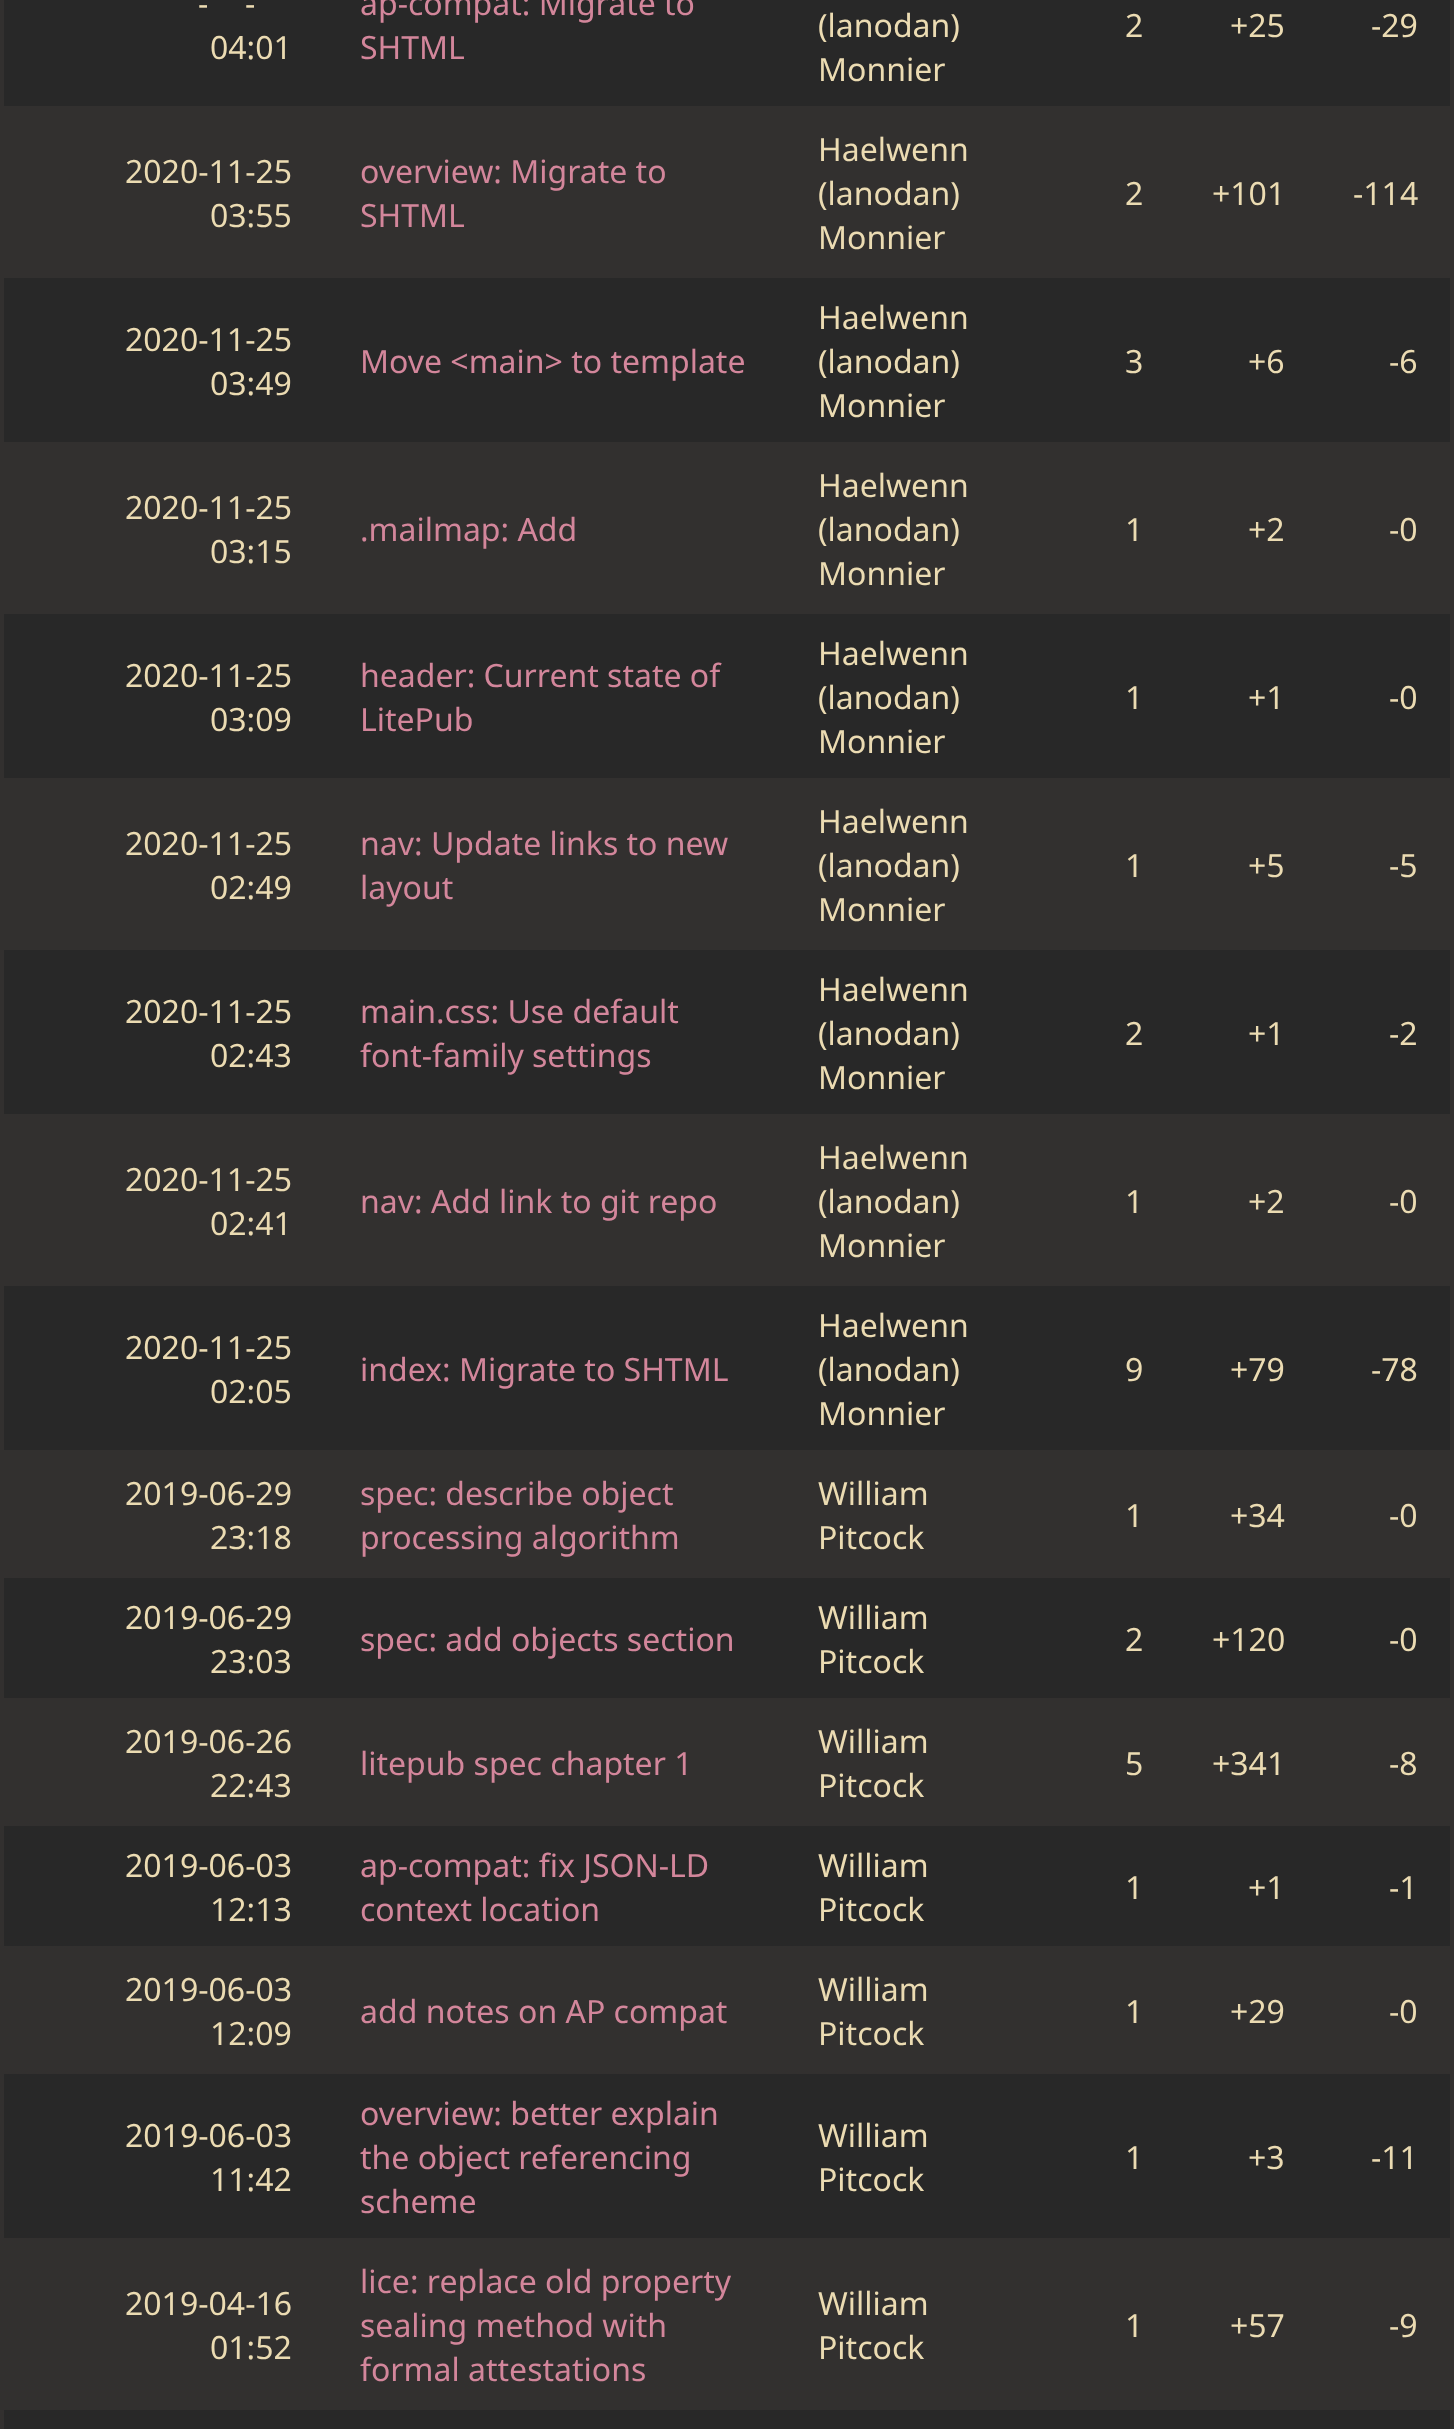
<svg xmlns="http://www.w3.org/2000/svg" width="1454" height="2429">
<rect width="100%" height="100%" fill="#32302f"/>
<rect x="4" width="1446" height="106" fill="#282828"/>
<text x="198" y="15" style="font-family:Noto Sans;font-size:32px;fill:#ebdbb2">-</text>
<text x="245" y="15" style="font-family:Noto Sans;font-size:32px;fill:#ebdbb2">-</text>
<text x="210" y="59" style="font-family:Noto Sans;font-size:32px;fill:#ebdbb2">04:01</text>
<text x="360" y="15" style="font-family:Noto Sans;font-size:32px;fill:#d3869b">ap-compat: Migrate to</text>
<text x="360" y="59" style="font-family:Noto Sans;font-size:32px;fill:#d3869b">SHTML</text>
<text x="818" y="37" style="font-family:Noto Sans;font-size:32px;fill:#ebdbb2">(lanodan)</text>
<text x="818" y="81" style="font-family:Noto Sans;font-size:32px;fill:#ebdbb2">Monnier</text>
<text x="1125" y="37" style="font-family:Noto Sans;font-size:32px;fill:#ebdbb2">2</text>
<text x="1230" y="37" style="font-family:Noto Sans;font-size:32px;fill:#ebdbb2">+25</text>
<text x="1371" y="37" style="font-family:Noto Sans;font-size:32px;fill:#ebdbb2">-29</text>
<text x="125" y="183" style="font-family:Noto Sans;font-size:32px;fill:#ebdbb2">2020-11-25</text>
<text x="210" y="227" style="font-family:Noto Sans;font-size:32px;fill:#ebdbb2">03:55</text>
<text x="360" y="183" style="font-family:Noto Sans;font-size:32px;fill:#d3869b">overview: Migrate to</text>
<text x="360" y="227" style="font-family:Noto Sans;font-size:32px;fill:#d3869b">SHTML</text>
<text x="818" y="161" style="font-family:Noto Sans;font-size:32px;fill:#ebdbb2">Haelwenn</text>
<text x="818" y="205" style="font-family:Noto Sans;font-size:32px;fill:#ebdbb2">(lanodan)</text>
<text x="818" y="249" style="font-family:Noto Sans;font-size:32px;fill:#ebdbb2">Monnier</text>
<text x="1125" y="205" style="font-family:Noto Sans;font-size:32px;fill:#ebdbb2">2</text>
<text x="1212" y="205" style="font-family:Noto Sans;font-size:32px;fill:#ebdbb2">+101</text>
<text x="1353" y="205" style="font-family:Noto Sans;font-size:32px;fill:#ebdbb2">-114</text>
<rect x="4" y="278" width="1446" height="164" fill="#282828"/>
<text x="125" y="351" style="font-family:Noto Sans;font-size:32px;fill:#ebdbb2">2020-11-25</text>
<text x="210" y="395" style="font-family:Noto Sans;font-size:32px;fill:#ebdbb2">03:49</text>
<text x="360" y="373" style="font-family:Noto Sans;font-size:32px;fill:#d3869b">Move &lt;main&gt; to template</text>
<text x="818" y="329" style="font-family:Noto Sans;font-size:32px;fill:#ebdbb2">Haelwenn</text>
<text x="818" y="373" style="font-family:Noto Sans;font-size:32px;fill:#ebdbb2">(lanodan)</text>
<text x="818" y="417" style="font-family:Noto Sans;font-size:32px;fill:#ebdbb2">Monnier</text>
<text x="1125" y="373" style="font-family:Noto Sans;font-size:32px;fill:#ebdbb2">3</text>
<text x="1248" y="373" style="font-family:Noto Sans;font-size:32px;fill:#ebdbb2">+6</text>
<text x="1389" y="373" style="font-family:Noto Sans;font-size:32px;fill:#ebdbb2">-6</text>
<text x="125" y="519" style="font-family:Noto Sans;font-size:32px;fill:#ebdbb2">2020-11-25</text>
<text x="210" y="563" style="font-family:Noto Sans;font-size:32px;fill:#ebdbb2">03:15</text>
<text x="360" y="541" style="font-family:Noto Sans;font-size:32px;fill:#d3869b">.mailmap: Add</text>
<text x="818" y="497" style="font-family:Noto Sans;font-size:32px;fill:#ebdbb2">Haelwenn</text>
<text x="818" y="541" style="font-family:Noto Sans;font-size:32px;fill:#ebdbb2">(lanodan)</text>
<text x="818" y="585" style="font-family:Noto Sans;font-size:32px;fill:#ebdbb2">Monnier</text>
<text x="1125" y="541" style="font-family:Noto Sans;font-size:32px;fill:#ebdbb2">1</text>
<text x="1248" y="541" style="font-family:Noto Sans;font-size:32px;fill:#ebdbb2">+2</text>
<text x="1389" y="541" style="font-family:Noto Sans;font-size:32px;fill:#ebdbb2">-0</text>
<rect x="4" y="614" width="1446" height="164" fill="#282828"/>
<text x="125" y="687" style="font-family:Noto Sans;font-size:32px;fill:#ebdbb2">2020-11-25</text>
<text x="210" y="731" style="font-family:Noto Sans;font-size:32px;fill:#ebdbb2">03:09</text>
<text x="360" y="687" style="font-family:Noto Sans;font-size:32px;fill:#d3869b">header: Current state of</text>
<text x="360" y="731" style="font-family:Noto Sans;font-size:32px;fill:#d3869b">LitePub</text>
<text x="818" y="665" style="font-family:Noto Sans;font-size:32px;fill:#ebdbb2">Haelwenn</text>
<text x="818" y="709" style="font-family:Noto Sans;font-size:32px;fill:#ebdbb2">(lanodan)</text>
<text x="818" y="753" style="font-family:Noto Sans;font-size:32px;fill:#ebdbb2">Monnier</text>
<text x="1125" y="709" style="font-family:Noto Sans;font-size:32px;fill:#ebdbb2">1</text>
<text x="1248" y="709" style="font-family:Noto Sans;font-size:32px;fill:#ebdbb2">+1</text>
<text x="1389" y="709" style="font-family:Noto Sans;font-size:32px;fill:#ebdbb2">-0</text>
<text x="125" y="855" style="font-family:Noto Sans;font-size:32px;fill:#ebdbb2">2020-11-25</text>
<text x="210" y="899" style="font-family:Noto Sans;font-size:32px;fill:#ebdbb2">02:49</text>
<text x="360" y="855" style="font-family:Noto Sans;font-size:32px;fill:#d3869b">nav: Update links to new</text>
<text x="360" y="899" style="font-family:Noto Sans;font-size:32px;fill:#d3869b">layout</text>
<text x="818" y="833" style="font-family:Noto Sans;font-size:32px;fill:#ebdbb2">Haelwenn</text>
<text x="818" y="877" style="font-family:Noto Sans;font-size:32px;fill:#ebdbb2">(lanodan)</text>
<text x="818" y="921" style="font-family:Noto Sans;font-size:32px;fill:#ebdbb2">Monnier</text>
<text x="1125" y="877" style="font-family:Noto Sans;font-size:32px;fill:#ebdbb2">1</text>
<text x="1248" y="877" style="font-family:Noto Sans;font-size:32px;fill:#ebdbb2">+5</text>
<text x="1389" y="877" style="font-family:Noto Sans;font-size:32px;fill:#ebdbb2">-5</text>
<rect x="4" y="950" width="1446" height="164" fill="#282828"/>
<text x="125" y="1023" style="font-family:Noto Sans;font-size:32px;fill:#ebdbb2">2020-11-25</text>
<text x="210" y="1067" style="font-family:Noto Sans;font-size:32px;fill:#ebdbb2">02:43</text>
<text x="360" y="1023" style="font-family:Noto Sans;font-size:32px;fill:#d3869b">main.css: Use default</text>
<text x="360" y="1067" style="font-family:Noto Sans;font-size:32px;fill:#d3869b">font-family settings</text>
<text x="818" y="1001" style="font-family:Noto Sans;font-size:32px;fill:#ebdbb2">Haelwenn</text>
<text x="818" y="1045" style="font-family:Noto Sans;font-size:32px;fill:#ebdbb2">(lanodan)</text>
<text x="818" y="1089" style="font-family:Noto Sans;font-size:32px;fill:#ebdbb2">Monnier</text>
<text x="1125" y="1045" style="font-family:Noto Sans;font-size:32px;fill:#ebdbb2">2</text>
<text x="1248" y="1045" style="font-family:Noto Sans;font-size:32px;fill:#ebdbb2">+1</text>
<text x="1389" y="1045" style="font-family:Noto Sans;font-size:32px;fill:#ebdbb2">-2</text>
<text x="125" y="1191" style="font-family:Noto Sans;font-size:32px;fill:#ebdbb2">2020-11-25</text>
<text x="210" y="1235" style="font-family:Noto Sans;font-size:32px;fill:#ebdbb2">02:41</text>
<text x="360" y="1213" style="font-family:Noto Sans;font-size:32px;fill:#d3869b">nav: Add link to git repo</text>
<text x="818" y="1169" style="font-family:Noto Sans;font-size:32px;fill:#ebdbb2">Haelwenn</text>
<text x="818" y="1213" style="font-family:Noto Sans;font-size:32px;fill:#ebdbb2">(lanodan)</text>
<text x="818" y="1257" style="font-family:Noto Sans;font-size:32px;fill:#ebdbb2">Monnier</text>
<text x="1125" y="1213" style="font-family:Noto Sans;font-size:32px;fill:#ebdbb2">1</text>
<text x="1248" y="1213" style="font-family:Noto Sans;font-size:32px;fill:#ebdbb2">+2</text>
<text x="1389" y="1213" style="font-family:Noto Sans;font-size:32px;fill:#ebdbb2">-0</text>
<rect x="4" y="1286" width="1446" height="164" fill="#282828"/>
<text x="125" y="1359" style="font-family:Noto Sans;font-size:32px;fill:#ebdbb2">2020-11-25</text>
<text x="210" y="1403" style="font-family:Noto Sans;font-size:32px;fill:#ebdbb2">02:05</text>
<text x="360" y="1381" style="font-family:Noto Sans;font-size:32px;fill:#d3869b">index: Migrate to SHTML</text>
<text x="818" y="1337" style="font-family:Noto Sans;font-size:32px;fill:#ebdbb2">Haelwenn</text>
<text x="818" y="1381" style="font-family:Noto Sans;font-size:32px;fill:#ebdbb2">(lanodan)</text>
<text x="818" y="1425" style="font-family:Noto Sans;font-size:32px;fill:#ebdbb2">Monnier</text>
<text x="1125" y="1381" style="font-family:Noto Sans;font-size:32px;fill:#ebdbb2">9</text>
<text x="1230" y="1381" style="font-family:Noto Sans;font-size:32px;fill:#ebdbb2">+79</text>
<text x="1371" y="1381" style="font-family:Noto Sans;font-size:32px;fill:#ebdbb2">-78</text>
<text x="125" y="1505" style="font-family:Noto Sans;font-size:32px;fill:#ebdbb2">2019-06-29</text>
<text x="210" y="1549" style="font-family:Noto Sans;font-size:32px;fill:#ebdbb2">23:18</text>
<text x="360" y="1505" style="font-family:Noto Sans;font-size:32px;fill:#d3869b">spec: describe object</text>
<text x="360" y="1549" style="font-family:Noto Sans;font-size:32px;fill:#d3869b">processing algorithm</text>
<text x="818" y="1505" style="font-family:Noto Sans;font-size:32px;fill:#ebdbb2">William</text>
<text x="818" y="1549" style="font-family:Noto Sans;font-size:32px;fill:#ebdbb2">Pitcock</text>
<text x="1125" y="1527" style="font-family:Noto Sans;font-size:32px;fill:#ebdbb2">1</text>
<text x="1230" y="1527" style="font-family:Noto Sans;font-size:32px;fill:#ebdbb2">+34</text>
<text x="1389" y="1527" style="font-family:Noto Sans;font-size:32px;fill:#ebdbb2">-0</text>
<rect x="4" y="1578" width="1446" height="120" fill="#282828"/>
<text x="125" y="1629" style="font-family:Noto Sans;font-size:32px;fill:#ebdbb2">2019-06-29</text>
<text x="210" y="1673" style="font-family:Noto Sans;font-size:32px;fill:#ebdbb2">23:03</text>
<text x="360" y="1651" style="font-family:Noto Sans;font-size:32px;fill:#d3869b">spec: add objects section</text>
<text x="818" y="1629" style="font-family:Noto Sans;font-size:32px;fill:#ebdbb2">William</text>
<text x="818" y="1673" style="font-family:Noto Sans;font-size:32px;fill:#ebdbb2">Pitcock</text>
<text x="1125" y="1651" style="font-family:Noto Sans;font-size:32px;fill:#ebdbb2">2</text>
<text x="1212" y="1651" style="font-family:Noto Sans;font-size:32px;fill:#ebdbb2">+120</text>
<text x="1389" y="1651" style="font-family:Noto Sans;font-size:32px;fill:#ebdbb2">-0</text>
<text x="125" y="1753" style="font-family:Noto Sans;font-size:32px;fill:#ebdbb2">2019-06-26</text>
<text x="210" y="1797" style="font-family:Noto Sans;font-size:32px;fill:#ebdbb2">22:43</text>
<text x="360" y="1775" style="font-family:Noto Sans;font-size:32px;fill:#d3869b">litepub spec chapter 1</text>
<text x="818" y="1753" style="font-family:Noto Sans;font-size:32px;fill:#ebdbb2">William</text>
<text x="818" y="1797" style="font-family:Noto Sans;font-size:32px;fill:#ebdbb2">Pitcock</text>
<text x="1125" y="1775" style="font-family:Noto Sans;font-size:32px;fill:#ebdbb2">5</text>
<text x="1212" y="1775" style="font-family:Noto Sans;font-size:32px;fill:#ebdbb2">+341</text>
<text x="1389" y="1775" style="font-family:Noto Sans;font-size:32px;fill:#ebdbb2">-8</text>
<rect x="4" y="1826" width="1446" height="120" fill="#282828"/>
<text x="125" y="1877" style="font-family:Noto Sans;font-size:32px;fill:#ebdbb2">2019-06-03</text>
<text x="210" y="1921" style="font-family:Noto Sans;font-size:32px;fill:#ebdbb2">12:13</text>
<text x="360" y="1877" style="font-family:Noto Sans;font-size:32px;fill:#d3869b">ap-compat: fix JSON-LD</text>
<text x="360" y="1921" style="font-family:Noto Sans;font-size:32px;fill:#d3869b">context location</text>
<text x="818" y="1877" style="font-family:Noto Sans;font-size:32px;fill:#ebdbb2">William</text>
<text x="818" y="1921" style="font-family:Noto Sans;font-size:32px;fill:#ebdbb2">Pitcock</text>
<text x="1125" y="1899" style="font-family:Noto Sans;font-size:32px;fill:#ebdbb2">1</text>
<text x="1248" y="1899" style="font-family:Noto Sans;font-size:32px;fill:#ebdbb2">+1</text>
<text x="1389" y="1899" style="font-family:Noto Sans;font-size:32px;fill:#ebdbb2">-1</text>
<text x="125" y="2001" style="font-family:Noto Sans;font-size:32px;fill:#ebdbb2">2019-06-03</text>
<text x="210" y="2045" style="font-family:Noto Sans;font-size:32px;fill:#ebdbb2">12:09</text>
<text x="360" y="2023" style="font-family:Noto Sans;font-size:32px;fill:#d3869b">add notes on AP compat</text>
<text x="818" y="2001" style="font-family:Noto Sans;font-size:32px;fill:#ebdbb2">William</text>
<text x="818" y="2045" style="font-family:Noto Sans;font-size:32px;fill:#ebdbb2">Pitcock</text>
<text x="1125" y="2023" style="font-family:Noto Sans;font-size:32px;fill:#ebdbb2">1</text>
<text x="1230" y="2023" style="font-family:Noto Sans;font-size:32px;fill:#ebdbb2">+29</text>
<text x="1389" y="2023" style="font-family:Noto Sans;font-size:32px;fill:#ebdbb2">-0</text>
<rect x="4" y="2074" width="1446" height="164" fill="#282828"/>
<text x="125" y="2147" style="font-family:Noto Sans;font-size:32px;fill:#ebdbb2">2019-06-03</text>
<text x="210" y="2191" style="font-family:Noto Sans;font-size:32px;fill:#ebdbb2">11:42</text>
<text x="360" y="2125" style="font-family:Noto Sans;font-size:32px;fill:#d3869b">overview: better explain</text>
<text x="360" y="2169" style="font-family:Noto Sans;font-size:32px;fill:#d3869b">the object referencing</text>
<text x="360" y="2213" style="font-family:Noto Sans;font-size:32px;fill:#d3869b">scheme</text>
<text x="818" y="2147" style="font-family:Noto Sans;font-size:32px;fill:#ebdbb2">William</text>
<text x="818" y="2191" style="font-family:Noto Sans;font-size:32px;fill:#ebdbb2">Pitcock</text>
<text x="1125" y="2169" style="font-family:Noto Sans;font-size:32px;fill:#ebdbb2">1</text>
<text x="1248" y="2169" style="font-family:Noto Sans;font-size:32px;fill:#ebdbb2">+3</text>
<text x="1371" y="2169" style="font-family:Noto Sans;font-size:32px;fill:#ebdbb2">-11</text>
<text x="125" y="2315" style="font-family:Noto Sans;font-size:32px;fill:#ebdbb2">2019-04-16</text>
<text x="210" y="2359" style="font-family:Noto Sans;font-size:32px;fill:#ebdbb2">01:52</text>
<text x="360" y="2293" style="font-family:Noto Sans;font-size:32px;fill:#d3869b">lice: replace old property</text>
<text x="360" y="2337" style="font-family:Noto Sans;font-size:32px;fill:#d3869b">sealing method with</text>
<text x="360" y="2381" style="font-family:Noto Sans;font-size:32px;fill:#d3869b">formal attestations</text>
<text x="818" y="2315" style="font-family:Noto Sans;font-size:32px;fill:#ebdbb2">William</text>
<text x="818" y="2359" style="font-family:Noto Sans;font-size:32px;fill:#ebdbb2">Pitcock</text>
<text x="1125" y="2337" style="font-family:Noto Sans;font-size:32px;fill:#ebdbb2">1</text>
<text x="1230" y="2337" style="font-family:Noto Sans;font-size:32px;fill:#ebdbb2">+57</text>
<text x="1389" y="2337" style="font-family:Noto Sans;font-size:32px;fill:#ebdbb2">-9</text>
<rect x="4" y="2410" width="1446" height="19" fill="#282828"/>
</svg>
